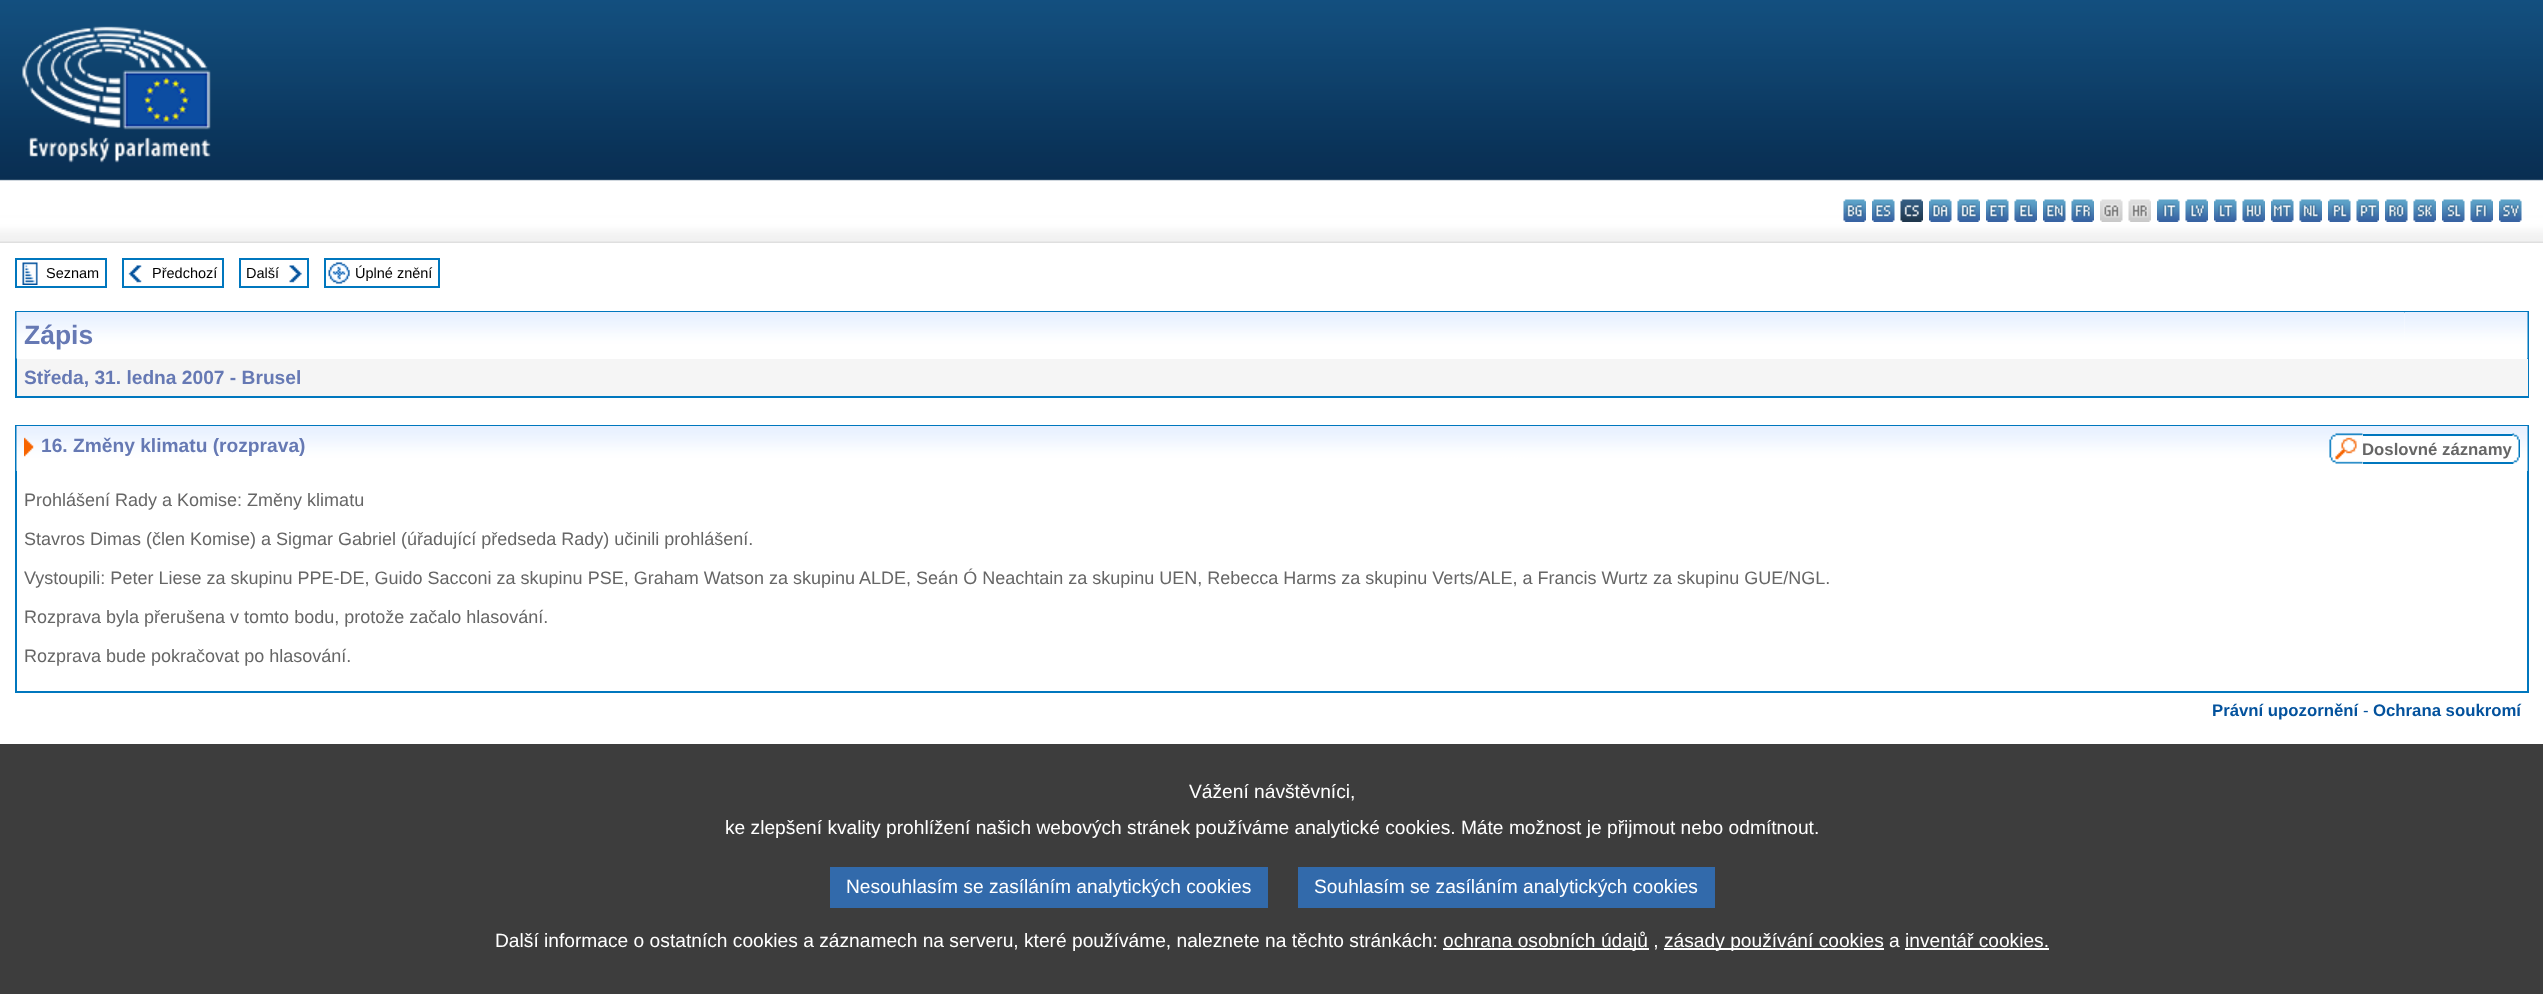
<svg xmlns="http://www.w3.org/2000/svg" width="2543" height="994">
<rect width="100%" height="100%" fill="#fff"/>
<image x="0" y="0" width="2543" height="243" href="media/1.png"/>
<image x="22" y="26" width="189" height="137" href="media/2.png"/>
<image x="1843" y="199" width="23" height="23" href="media/3.png"/>
<image x="1872" y="199" width="23" height="23" href="media/4.png"/>
<image x="1900" y="199" width="23" height="23" href="media/5.png"/>
<image x="1929" y="199" width="23" height="23" href="media/6.png"/>
<image x="1957" y="199" width="23" height="23" href="media/7.png"/>
<image x="1986" y="199" width="23" height="23" href="media/8.png"/>
<image x="2014" y="199" width="23" height="23" href="media/9.png"/>
<image x="2043" y="199" width="23" height="23" href="media/10.png"/>
<image x="2071" y="199" width="23" height="23" href="media/11.png"/>
<image x="2100" y="199" width="23" height="23" href="media/12.png"/>
<image x="2128" y="199" width="23" height="23" href="media/13.png"/>
<image x="2157" y="199" width="23" height="23" href="media/14.png"/>
<image x="2185" y="199" width="23" height="23" href="media/15.png"/>
<image x="2214" y="199" width="23" height="23" href="media/16.png"/>
<image x="2242" y="199" width="23" height="23" href="media/17.png"/>
<image x="2271" y="199" width="23" height="23" href="media/18.png"/>
<image x="2299" y="199" width="23" height="23" href="media/19.png"/>
<image x="2328" y="199" width="23" height="23" href="media/20.png"/>
<image x="2356" y="199" width="23" height="23" href="media/21.png"/>
<image x="2385" y="199" width="23" height="23" href="media/22.png"/>
<image x="2413" y="199" width="23" height="23" href="media/23.png"/>
<image x="2442" y="199" width="23" height="23" href="media/24.png"/>
<image x="2470" y="199" width="23" height="23" href="media/25.png"/>
<image x="2499" y="199" width="23" height="23" href="media/26.png"/>
<rect x="16" y="259" width="90" height="28" fill="none" stroke="#0077be" stroke-width="2"/>
<image x="22" y="262" width="16" height="23" href="media/27.png"/>
<text x="46" y="278" style="font-family:Liberation Sans;font-size:14.5px;fill:#000">Seznam</text>
<rect x="123" y="259" width="100" height="28" fill="none" stroke="#0077be" stroke-width="2"/>
<image x="128" y="265" width="14" height="18" href="media/28.png"/>
<text x="152" y="278" style="font-family:Liberation Sans;font-size:14.5px;fill:#000">Předchozí</text>
<rect x="240" y="259" width="68" height="28" fill="none" stroke="#0077be" stroke-width="2"/>
<text x="246" y="278" style="font-family:Liberation Sans;font-size:14.5px;fill:#000">Další</text>
<image x="289" y="265" width="13" height="18" href="media/29.png"/>
<rect x="325" y="259" width="114" height="28" fill="none" stroke="#0077be" stroke-width="2"/>
<image x="328" y="262" width="22" height="22" href="media/30.png"/>
<text x="355" y="278" style="font-family:Liberation Sans;font-size:14.5px;fill:#000">Úplné znění</text>
<rect x="16" y="312" width="2512" height="85" fill="none" stroke="#0077be" stroke-width="2"/>
<image x="16" y="312" width="2389" height="47" href="media/31.png"/>
<text x="24" y="344" style="font-family:Liberation Sans;font-size:26.5px;font-weight:bold;fill:#6679b4">Zápis</text>
<image x="2404" y="312" width="124" height="47" href="media/32.png"/>
<rect x="17" y="359" width="2511" height="37" fill="#f5f5f5"/>
<text x="24" y="384" style="font-family:Liberation Sans;font-size:19.2px;font-weight:bold;fill:#6679b4">Středa, 31. ledna 2007 - Brusel</text>
<rect x="16" y="426" width="2512" height="266" fill="none" stroke="#0077be" stroke-width="2"/>
<image x="16" y="426" width="1484" height="45" href="media/33.png"/>
<image x="24" y="437" width="10" height="20" href="media/34.png"/>
<text x="41" y="452" style="font-family:Liberation Sans;font-size:19.2px;font-weight:bold;fill:#6679b4">16. Změny klimatu (rozprava)</text>
<image x="1500" y="426" width="1028" height="45" href="media/35.png"/>
<image x="2329" y="433" width="34" height="31" href="media/36.png"/>
<rect x="2363" y="436" width="150" height="18" fill="#fff"/>
<rect x="2363" y="434" width="150" height="2" fill="#0077be"/>
<rect x="2363" y="462" width="150" height="2" fill="#0077be"/>
<text x="2362" y="455" style="font-family:Liberation Sans;font-size:16.75px;font-weight:bold;fill:#666">Doslovné záznamy</text>
<image x="2512" y="433" width="8" height="31" href="media/37.png"/>
<text x="24" y="506" style="font-family:Liberation Sans;font-size:18px;fill:#666">Prohlášení Rady a Komise: Změny klimatu</text>
<text x="24" y="545" style="font-family:Liberation Sans;font-size:18px;fill:#666">Stavros Dimas (člen Komise) a Sigmar Gabriel (úřadující předseda Rady) učinili prohlášení.</text>
<text x="24" y="584" style="font-family:Liberation Sans;font-size:18px;fill:#666">Vystoupili: Peter Liese za skupinu PPE-DE, Guido Sacconi za skupinu PSE, Graham Watson za skupinu ALDE, Seán Ó Neachtain za skupinu UEN, Rebecca Harms za skupinu Verts/ALE, a Francis Wurtz za skupinu GUE/NGL.</text>
<text x="24" y="623" style="font-family:Liberation Sans;font-size:18px;fill:#666">Rozprava byla přerušena v tomto bodu, protože začalo hlasování.</text>
<text x="24" y="662" style="font-family:Liberation Sans;font-size:18px;fill:#666">Rozprava bude pokračovat po hlasování.</text>
<text x="2212" y="716" style="font-family:Liberation Sans;font-size:16.75px;font-weight:bold;fill:#03529d">Právní upozornění</text>
<text x="2363" y="716" style="font-family:Liberation Sans;font-size:16.75px;fill:#03529d">-</text>
<text x="2373" y="716" style="font-family:Liberation Sans;font-size:16.75px;font-weight:bold;fill:#03529d">Ochrana soukromí</text>
<rect y="744" width="2543" height="250" fill="#3d3d3d"/>
<text x="1189" y="798" style="font-family:Liberation Sans;font-size:19.2px;fill:#fff">Vážení návštěvníci,</text>
<text x="725" y="834" style="font-family:Liberation Sans;font-size:19.2px;fill:#fff">ke zlepšení kvality prohlížení našich webových stránek používáme analytické cookies. Máte možnost je přijmout nebo odmítnout.</text>
<rect x="830" y="867" width="438" height="41" fill="#326aab"/>
<text x="846" y="893" style="font-family:Liberation Sans;font-size:19.2px;fill:#fff">Nesouhlasím se zasíláním analytických cookies</text>
<rect x="1298" y="867" width="417" height="41" fill="#326aab"/>
<text x="1314" y="893" style="font-family:Liberation Sans;font-size:19.2px;fill:#fff">Souhlasím se zasíláním analytických cookies</text>
<text x="495" y="947" style="font-family:Liberation Sans;font-size:19.2px;fill:#fff">Další informace o ostatních cookies a záznamech na serveru, které používáme, naleznete na těchto stránkách:</text>
<rect x="1443" y="948" width="206" height="2" fill="#fff"/>
<text x="1443" y="947" style="font-family:Liberation Sans;font-size:19.2px;fill:#fff">ochrana osobních údajů ,</text>
<rect x="1664" y="948" width="220" height="2" fill="#fff"/>
<text x="1664" y="947" style="font-family:Liberation Sans;font-size:19.2px;fill:#fff">zásady používání cookies a inventář cookies.</text>
<rect x="1905" y="948" width="144" height="2" fill="#fff"/>
</svg>
